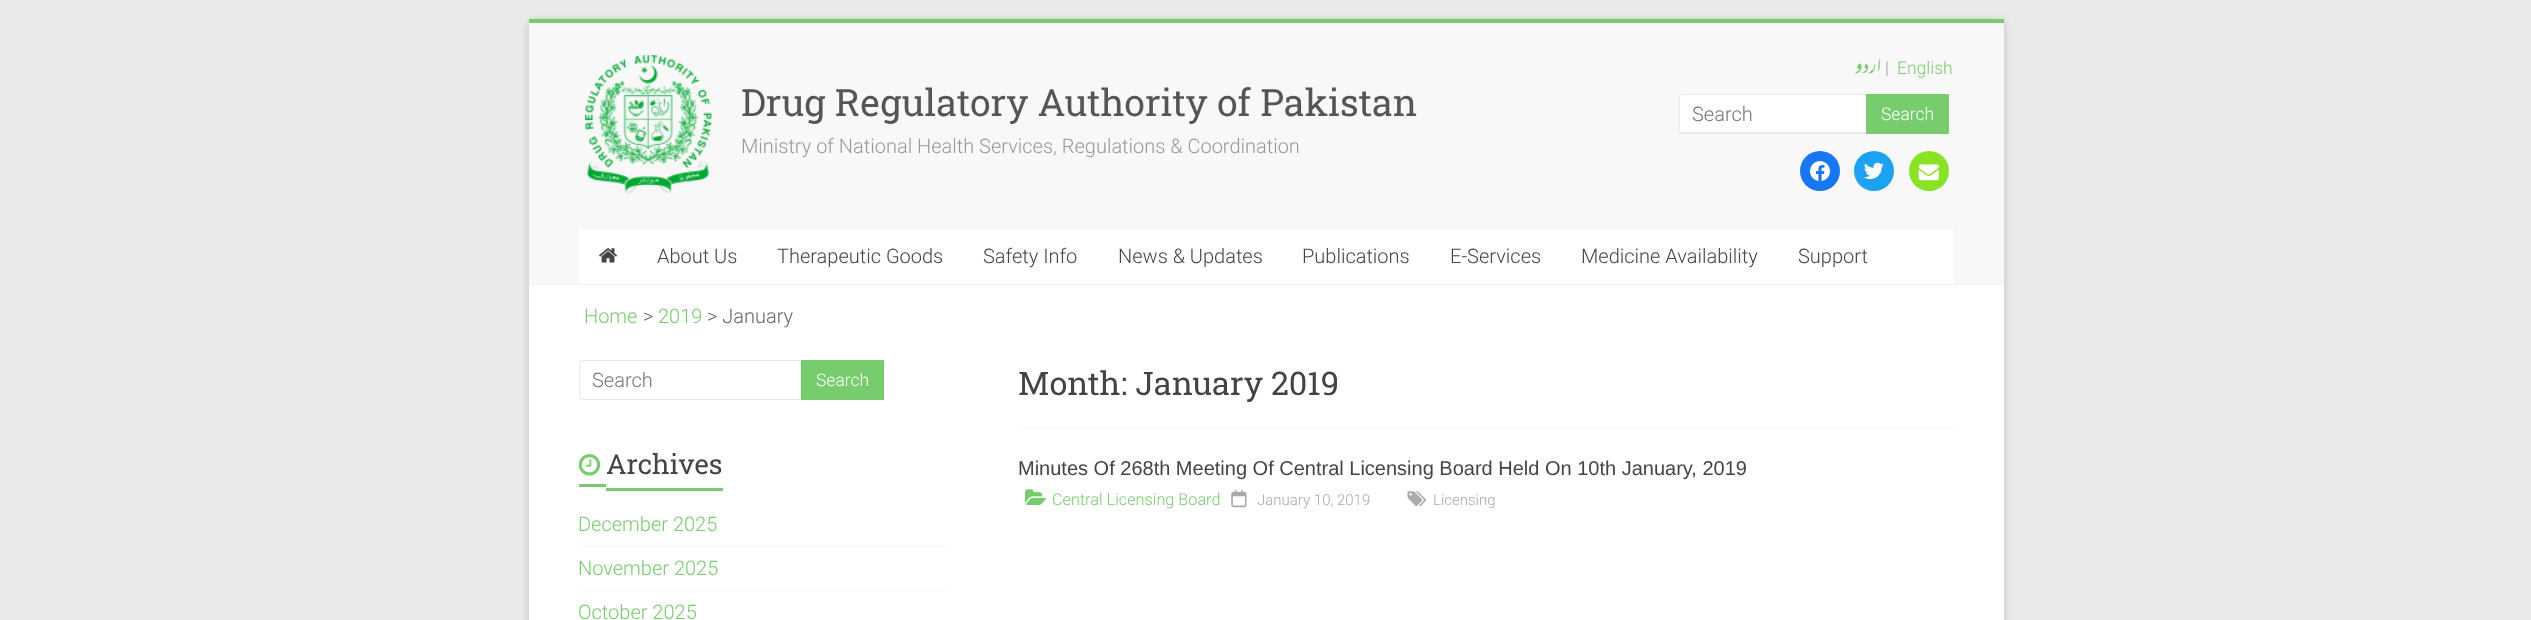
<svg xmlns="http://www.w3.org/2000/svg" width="2531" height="620">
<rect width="100%" height="100%" fill="#eaeaea"/>
<rect x="529" y="21" width="1475" height="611" fill="#6464644d" filter="blur(4px)"/>
<rect x="529" y="285" width="1475" height="335" fill="#fff"/>
<rect x="529" y="19" width="1475" height="4" fill="#77cc6d"/>
<rect x="529" y="23" width="1475" height="261" fill="#f8f8f8"/>
<rect x="529" y="284" width="1475" height="1" fill="#f2f2f2"/>
<image x="584" y="55" width="128" height="138" href="media/1.png"/>
<text x="741" y="116" style="font-family:Roboto Slab;font-size:37.5px;fill:#555">Drug Regulatory Authority of Pakistan</text>
<text x="741" y="153" style="font-family:Roboto;font-size:20px;font-weight:300;fill:#999">Ministry of National Health Services, Regulations &amp; Coordination</text>
<text x="1881" y="74" style="font-family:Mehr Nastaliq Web;font-size:23px;direction:rtl;fill:#77cc6d">اردو</text>
<text x="1885" y="74" style="font-family:Roboto;font-size:17.5px;font-weight:300;fill:#999">|</text>
<text x="1897" y="74" style="font-family:Roboto;font-size:17.5px;font-weight:300;fill:#77cc6d">English</text>
<path d="M1683 94h183v40h-183c-2 0-4-2-4-4v-32c0-2 2-4 4-4z" fill="#fff"/>
<path d="M1682 94h184v40h-184c-2 0-3-2-3-4v-32c0-3 1-4 3-4zm0 1h184v37h-184c-1 0-2-1-2-2v-32c0-2 1-3 2-3z" fill="#eaeaea" fill-rule="evenodd"/>
<text x="1692" y="121" style="font-family:Roboto;font-size:20px;font-weight:300;fill:#757575">Search</text>
<rect x="1866" y="94" width="83" height="40" fill="#77cc6d"/>
<text x="1881" y="120" style="font-family:Roboto;font-size:17.5px;font-weight:300;fill:#fff">Search</text>
<circle cx="1820" cy="171" r="20" fill="#1877f2"/>
<image x="1810" y="161" width="20" height="20" href="media/2.png"/>
<circle cx="1874" cy="171" r="20" fill="#1da1f2"/>
<image x="1864" y="162" width="20" height="18" href="media/3.png"/>
<circle cx="1929" cy="171" r="20" fill="#89e224"/>
<image x="1918" y="164" width="21" height="17" href="media/4.png"/>
<rect x="579" y="229" width="1375" height="55" fill="#fff"/>
<image x="599" y="248" width="18" height="15" href="media/5.png"/>
<text x="657" y="263" style="font-family:Roboto;font-size:20px;font-weight:300;fill:#444">About Us</text>
<text x="777" y="263" style="font-family:Roboto;font-size:20px;font-weight:300;fill:#444">Therapeutic Goods</text>
<text x="983" y="263" style="font-family:Roboto;font-size:20px;font-weight:300;fill:#444">Safety Info</text>
<text x="1118" y="263" style="font-family:Roboto;font-size:20px;font-weight:300;fill:#444">News &amp; Updates</text>
<text x="1302" y="263" style="font-family:Roboto;font-size:20px;font-weight:300;fill:#444">Publications</text>
<text x="1450" y="263" style="font-family:Roboto;font-size:20px;font-weight:300;fill:#444">E-Services</text>
<text x="1581" y="263" style="font-family:Roboto;font-size:20px;font-weight:300;fill:#444">Medicine Availability</text>
<text x="1798" y="263" style="font-family:Roboto;font-size:20px;font-weight:300;fill:#444">Support</text>
<text x="584" y="323" style="font-family:Roboto;font-size:20px;font-weight:300;fill:#77cc6d">Home</text>
<text x="643" y="323" style="font-family:Roboto;font-size:20px;font-weight:300;fill:#666">&gt;</text>
<text x="658" y="323" style="font-family:Roboto;font-size:20px;font-weight:300;fill:#77cc6d">2019</text>
<text x="707" y="323" style="font-family:Roboto;font-size:20px;font-weight:300;fill:#666">&gt; January</text>
<path d="M582 360h219v40h-219c-2 0-3-2-3-4v-32c0-2 1-4 3-4zm0 1h219v38h-219c-1 0-2-1-2-3v-32c0-2 1-3 2-3z" fill="#eaeaea" fill-rule="evenodd"/>
<text x="592" y="387" style="font-family:Roboto;font-size:20px;font-weight:300;fill:#757575">Search</text>
<rect x="801" y="360" width="83" height="40" fill="#77cc6d"/>
<text x="816" y="386" style="font-family:Roboto;font-size:17.5px;font-weight:300;fill:#fff">Search</text>
<image x="578" y="454" width="23" height="22" href="media/6.png"/>
<text x="606" y="474" style="font-family:Roboto Slab;font-size:27.5px;fill:#444">Archives</text>
<rect x="579" y="484" width="27" height="3" fill="#77cc6d"/>
<rect x="606" y="488" width="117" height="3" fill="#77cc6d"/>
<rect x="579" y="546" width="371" height="1" fill="#f8f8f8"/>
<text x="578" y="531" style="font-family:Roboto;font-size:20px;font-weight:300;fill:#77cc6d">December 2025</text>
<rect x="579" y="590" width="371" height="1" fill="#f8f8f8"/>
<text x="578" y="575" style="font-family:Roboto;font-size:20px;font-weight:300;fill:#77cc6d">November 2025</text>
<text x="578" y="619" style="font-family:Roboto;font-size:20px;font-weight:300;fill:#77cc6d">October 2025</text>
<rect x="1019" y="428" width="935" height="1" fill="#f8f8f8"/>
<text x="1018" y="395" style="font-family:Roboto Slab;font-size:32.5px;fill:#444">Month: January 2019</text>
<text x="1018" y="475" style="font-family:Liberation Sans;font-size:20px;fill:#444">Minutes Of 268th Meeting Of Central Licensing Board Held On 10th January, 2019</text>
<image x="1025" y="489" width="21" height="16" href="media/7.png"/>
<text x="1052" y="505" style="font-family:Roboto;font-size:16.25px;font-weight:300;fill:#77cc6d">Central Licensing Board</text>
<image x="1231" y="489" width="16" height="19" href="media/8.png"/>
<text x="1257" y="505" style="font-family:Roboto;font-size:15px;font-weight:300;fill:#aaa">January 10, 2019</text>
<image x="1407" y="491" width="19" height="15" href="media/9.png"/>
<text x="1433" y="505" style="font-family:Roboto;font-size:15px;font-weight:300;fill:#aaa">Licensing</text>
</svg>
